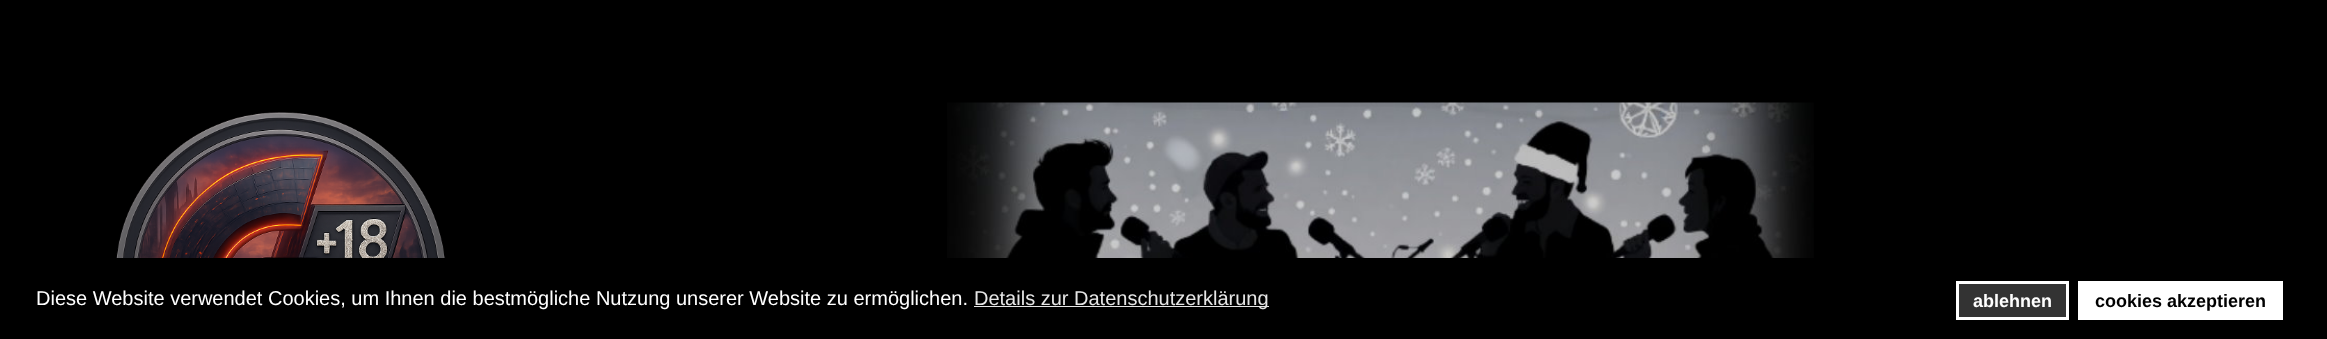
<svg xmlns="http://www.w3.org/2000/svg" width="2327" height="339">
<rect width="100%" height="100%" fill="#000"/>
<image x="116" y="112" width="330" height="146" href="media/1.png"/>
<image x="947" y="102" width="867" height="156" href="media/2.png"/>
<text x="36" y="305" style="font-family:Liberation Sans;font-size:20px;fill:#fff">Diese Website verwendet Cookies, um Ihnen die bestmögliche Nutzung unserer Website zu ermöglichen.</text>
<rect x="974" y="306" width="295" height="1" fill="#e6e6e6"/>
<text x="974" y="305" style="font-family:Liberation Sans;font-size:20px;fill:#e6e6e6">Details zur Datenschutzerklärung</text>
<rect x="1957.5" y="282.5" width="110" height="36" fill="#333" stroke="#fff" stroke-width="3"/>
<text x="1973" y="307" style="font-family:Liberation Sans;font-size:18px;font-weight:bold;fill:#fff">ablehnen</text>
<rect x="2078" y="281" width="205" height="39" fill="#fff"/>
<text x="2095" y="307" style="font-family:Liberation Sans;font-size:18px;font-weight:bold;fill:#000">cookies akzeptieren</text>
</svg>
